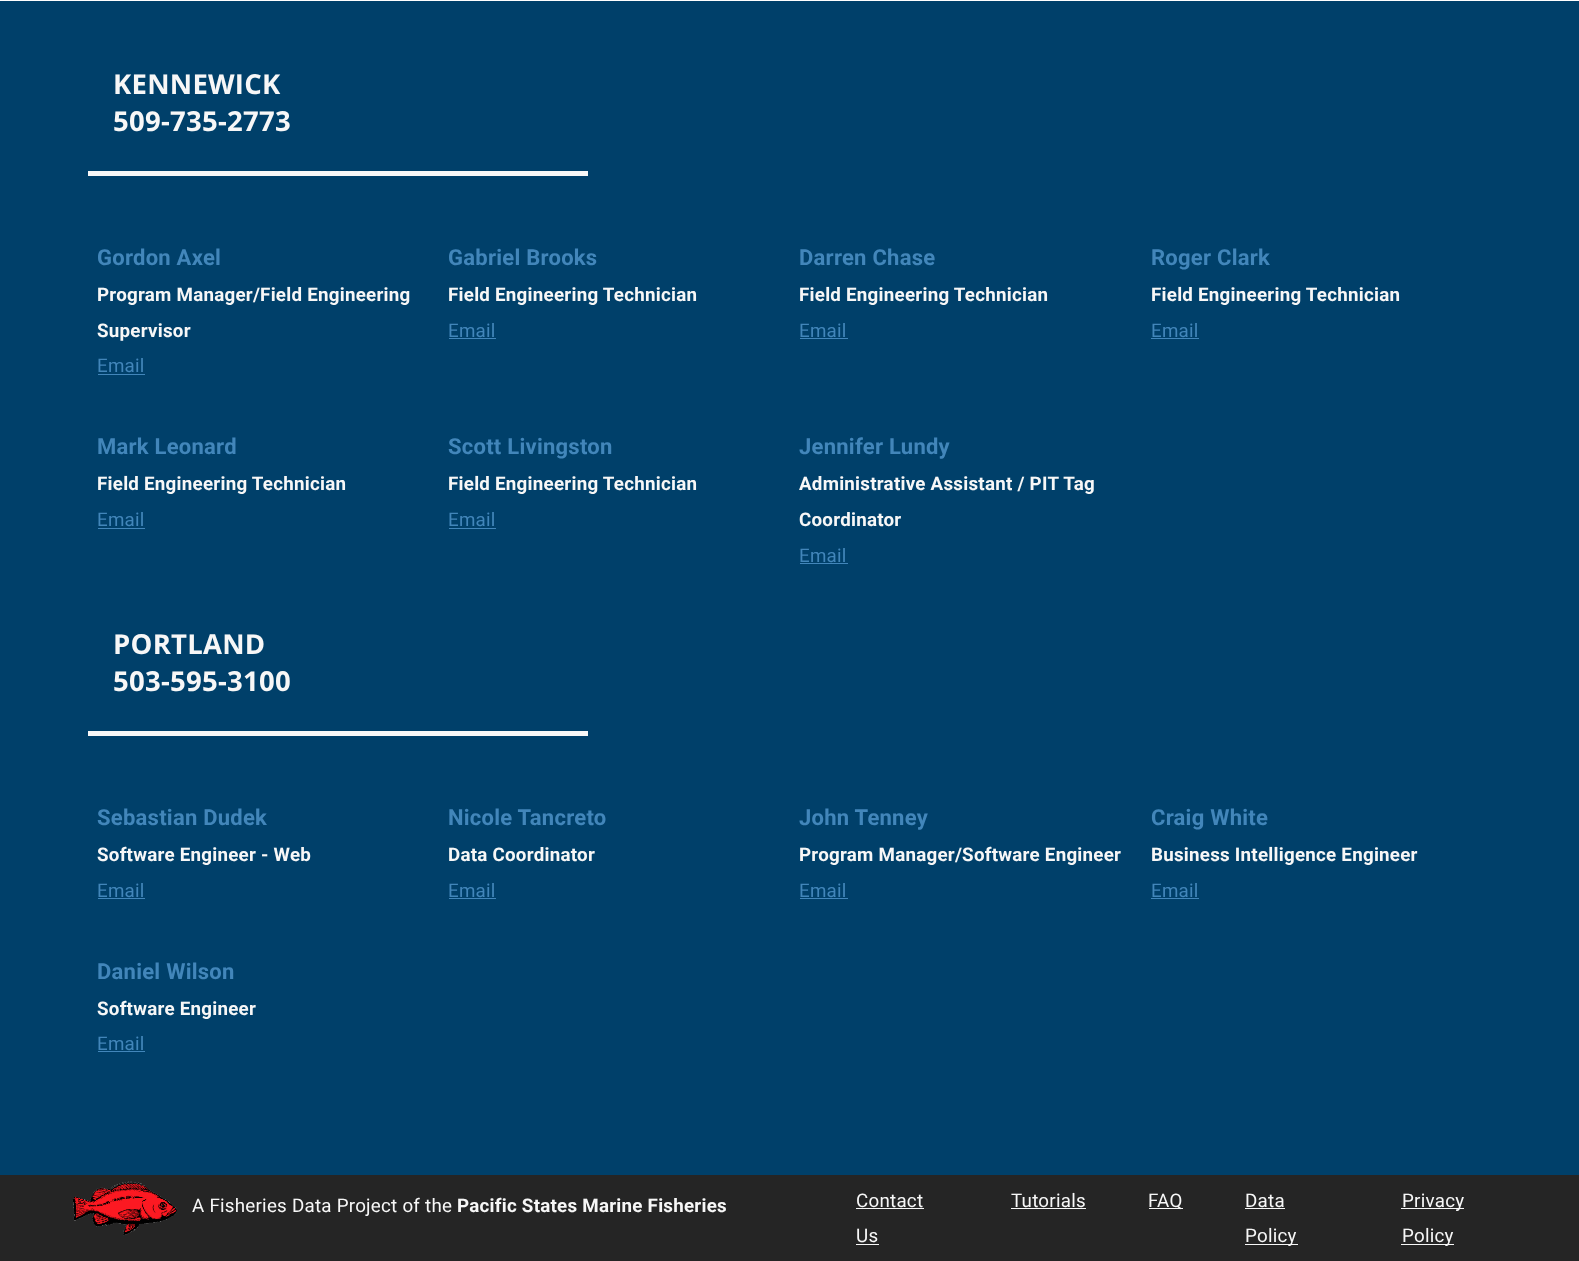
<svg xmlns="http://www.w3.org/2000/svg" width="1579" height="1261">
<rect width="100%" height="100%" fill="#fff"/>
<rect y="1" width="1579" height="1174" fill="#00406a"/>
<text x="113" y="94" style="font-family:Open Sans;font-size:27.5px;font-weight:bold;letter-spacing:0.25px;fill:#f7f7f7">KENNEWICK</text>
<text x="113" y="131" style="font-family:Open Sans;font-size:27.5px;font-weight:bold;letter-spacing:0.25px;fill:#f7f7f7">509-735-2773</text>
<rect x="88" y="171" width="500" height="5" fill="#f7f7f7"/>
<text x="97" y="265" style="font-family:Roboto;font-size:22px;font-weight:bold;letter-spacing:0.25px;fill:#4286ba">Gordon Axel</text>
<text x="97" y="301" style="font-family:Roboto;font-size:18.75px;font-weight:bold;letter-spacing:0.25px;fill:#f7f7f7">Program Manager/Field Engineering</text>
<text x="97" y="337" style="font-family:Roboto;font-size:18.75px;font-weight:bold;letter-spacing:0.25px;fill:#f7f7f7">Supervisor</text>
<text x="97" y="372" style="font-family:Roboto;font-size:18.75px;letter-spacing:0.25px;fill:#4286ba">Email</text>
<rect x="98" y="374" width="47" height="1" fill="#4286ba"/>
<text x="448" y="265" style="font-family:Roboto;font-size:22px;font-weight:bold;letter-spacing:0.25px;fill:#4286ba">Gabriel Brooks</text>
<text x="448" y="301" style="font-family:Roboto;font-size:18.75px;font-weight:bold;letter-spacing:0.25px;fill:#f7f7f7">Field Engineering Technician</text>
<text x="448" y="337" style="font-family:Roboto;font-size:18.75px;letter-spacing:0.25px;fill:#4286ba">Email</text>
<rect x="449" y="338" width="47" height="1" fill="#4286ba"/>
<text x="799" y="265" style="font-family:Roboto;font-size:22px;font-weight:bold;letter-spacing:0.25px;fill:#4286ba">Darren Chase</text>
<text x="799" y="301" style="font-family:Roboto;font-size:18.75px;font-weight:bold;letter-spacing:0.25px;fill:#f7f7f7">Field Engineering Technician</text>
<text x="799" y="337" style="font-family:Roboto;font-size:18.75px;letter-spacing:0.25px;fill:#4286ba">Email</text>
<rect x="800" y="338" width="48" height="1" fill="#4286ba"/>
<text x="1151" y="265" style="font-family:Roboto;font-size:22px;font-weight:bold;letter-spacing:0.25px;fill:#4286ba">Roger Clark</text>
<text x="1151" y="301" style="font-family:Roboto;font-size:18.75px;font-weight:bold;letter-spacing:0.25px;fill:#f7f7f7">Field Engineering Technician</text>
<text x="1151" y="337" style="font-family:Roboto;font-size:18.75px;letter-spacing:0.25px;fill:#4286ba">Email</text>
<rect x="1151" y="338" width="48" height="1" fill="#4286ba"/>
<text x="97" y="454" style="font-family:Roboto;font-size:22px;font-weight:bold;letter-spacing:0.25px;fill:#4286ba">Mark Leonard</text>
<text x="97" y="490" style="font-family:Roboto;font-size:18.75px;font-weight:bold;letter-spacing:0.25px;fill:#f7f7f7">Field Engineering Technician</text>
<text x="97" y="526" style="font-family:Roboto;font-size:18.75px;letter-spacing:0.25px;fill:#4286ba">Email</text>
<rect x="98" y="528" width="47" height="1" fill="#4286ba"/>
<text x="448" y="454" style="font-family:Roboto;font-size:22px;font-weight:bold;letter-spacing:0.25px;fill:#4286ba">Scott Livingston</text>
<text x="448" y="490" style="font-family:Roboto;font-size:18.75px;font-weight:bold;letter-spacing:0.25px;fill:#f7f7f7">Field Engineering Technician</text>
<text x="448" y="526" style="font-family:Roboto;font-size:18.75px;letter-spacing:0.25px;fill:#4286ba">Email</text>
<rect x="449" y="528" width="47" height="1" fill="#4286ba"/>
<text x="799" y="454" style="font-family:Roboto;font-size:22px;font-weight:bold;letter-spacing:0.25px;fill:#4286ba">Jennifer Lundy</text>
<text x="799" y="490" style="font-family:Roboto;font-size:18.75px;font-weight:bold;letter-spacing:0.25px;fill:#f7f7f7">Administrative Assistant / PIT Tag</text>
<text x="799" y="526" style="font-family:Roboto;font-size:18.75px;font-weight:bold;letter-spacing:0.25px;fill:#f7f7f7">Coordinator</text>
<text x="799" y="562" style="font-family:Roboto;font-size:18.75px;letter-spacing:0.25px;fill:#4286ba">Email</text>
<rect x="800" y="563" width="48" height="1" fill="#4286ba"/>
<text x="113" y="654" style="font-family:Open Sans;font-size:27.5px;font-weight:bold;letter-spacing:0.25px;fill:#f7f7f7">PORTLAND</text>
<text x="113" y="691" style="font-family:Open Sans;font-size:27.5px;font-weight:bold;letter-spacing:0.25px;fill:#f7f7f7">503-595-3100</text>
<rect x="88" y="731" width="500" height="5" fill="#f7f7f7"/>
<text x="97" y="825" style="font-family:Roboto;font-size:22px;font-weight:bold;letter-spacing:0.25px;fill:#4286ba">Sebastian Dudek</text>
<text x="97" y="861" style="font-family:Roboto;font-size:18.75px;font-weight:bold;letter-spacing:0.25px;fill:#f7f7f7">Software Engineer - Web</text>
<text x="97" y="897" style="font-family:Roboto;font-size:18.75px;letter-spacing:0.25px;fill:#4286ba">Email</text>
<rect x="98" y="898" width="47" height="1" fill="#4286ba"/>
<text x="448" y="825" style="font-family:Roboto;font-size:22px;font-weight:bold;letter-spacing:0.25px;fill:#4286ba">Nicole Tancreto</text>
<text x="448" y="861" style="font-family:Roboto;font-size:18.75px;font-weight:bold;letter-spacing:0.25px;fill:#f7f7f7">Data Coordinator</text>
<text x="448" y="897" style="font-family:Roboto;font-size:18.75px;letter-spacing:0.25px;fill:#4286ba">Email</text>
<rect x="449" y="898" width="47" height="1" fill="#4286ba"/>
<text x="799" y="825" style="font-family:Roboto;font-size:22px;font-weight:bold;letter-spacing:0.25px;fill:#4286ba">John Tenney</text>
<text x="799" y="861" style="font-family:Roboto;font-size:18.75px;font-weight:bold;letter-spacing:0.25px;fill:#f7f7f7">Program Manager/Software Engineer</text>
<text x="799" y="897" style="font-family:Roboto;font-size:18.75px;letter-spacing:0.25px;fill:#4286ba">Email</text>
<rect x="800" y="898" width="48" height="1" fill="#4286ba"/>
<text x="1151" y="825" style="font-family:Roboto;font-size:22px;font-weight:bold;letter-spacing:0.25px;fill:#4286ba">Craig White</text>
<text x="1151" y="861" style="font-family:Roboto;font-size:18.75px;font-weight:bold;letter-spacing:0.25px;fill:#f7f7f7">Business Intelligence Engineer</text>
<text x="1151" y="897" style="font-family:Roboto;font-size:18.75px;letter-spacing:0.25px;fill:#4286ba">Email</text>
<rect x="1151" y="898" width="48" height="1" fill="#4286ba"/>
<text x="97" y="979" style="font-family:Roboto;font-size:22px;font-weight:bold;letter-spacing:0.25px;fill:#4286ba">Daniel Wilson</text>
<text x="97" y="1015" style="font-family:Roboto;font-size:18.75px;font-weight:bold;letter-spacing:0.25px;fill:#f7f7f7">Software Engineer</text>
<text x="97" y="1050" style="font-family:Roboto;font-size:18.75px;letter-spacing:0.25px;fill:#4286ba">Email</text>
<rect x="98" y="1051" width="47" height="1" fill="#4286ba"/>
<rect y="1175" width="1579" height="86" fill="#252525"/>
<image x="72" y="1181" width="105" height="55" href="media/1.png"/>
<text x="192" y="1212" style="font-family:Roboto;font-size:18.75px;letter-spacing:0.25px;fill:#f7f7f7">A Fisheries Data Project of the</text>
<text x="457" y="1212" style="font-family:Roboto;font-size:18.75px;font-weight:bold;letter-spacing:0.25px;fill:#f7f7f7">Pacific States Marine Fisheries</text>
<text x="856" y="1207" style="font-family:Roboto;font-size:18.75px;letter-spacing:0.25px;fill:#f7f7f7">Contact</text>
<rect x="856" y="1208" width="68" height="1" fill="#f7f7f7"/>
<text x="856" y="1242" style="font-family:Roboto;font-size:18.75px;letter-spacing:0.25px;fill:#f7f7f7">Us</text>
<rect x="856" y="1244" width="23" height="1" fill="#f7f7f7"/>
<text x="1011" y="1207" style="font-family:Roboto;font-size:18.75px;letter-spacing:0.25px;fill:#f7f7f7">Tutorials</text>
<rect x="1011" y="1208" width="75" height="1" fill="#f7f7f7"/>
<rect x="1149" y="1208" width="34" height="1" fill="#f7f7f7"/>
<text x="1148" y="1207" style="font-family:Roboto;font-size:18.75px;letter-spacing:0.25px;fill:#f7f7f7">FAQ</text>
<text x="1245" y="1207" style="font-family:Roboto;font-size:18.75px;letter-spacing:0.25px;fill:#f7f7f7">Data</text>
<rect x="1245" y="1208" width="40" height="1" fill="#f7f7f7"/>
<rect x="1245" y="1244" width="53" height="1" fill="#f7f7f7"/>
<text x="1245" y="1242" style="font-family:Roboto;font-size:18.75px;letter-spacing:0.25px;fill:#f7f7f7">Policy</text>
<rect x="1401" y="1208" width="63" height="1" fill="#f7f7f7"/>
<text x="1402" y="1207" style="font-family:Roboto;font-size:18.75px;letter-spacing:0.25px;fill:#f7f7f7">Privacy</text>
<rect x="1401" y="1244" width="53" height="1" fill="#f7f7f7"/>
<text x="1402" y="1242" style="font-family:Roboto;font-size:18.75px;letter-spacing:0.25px;fill:#f7f7f7">Policy</text>
</svg>
